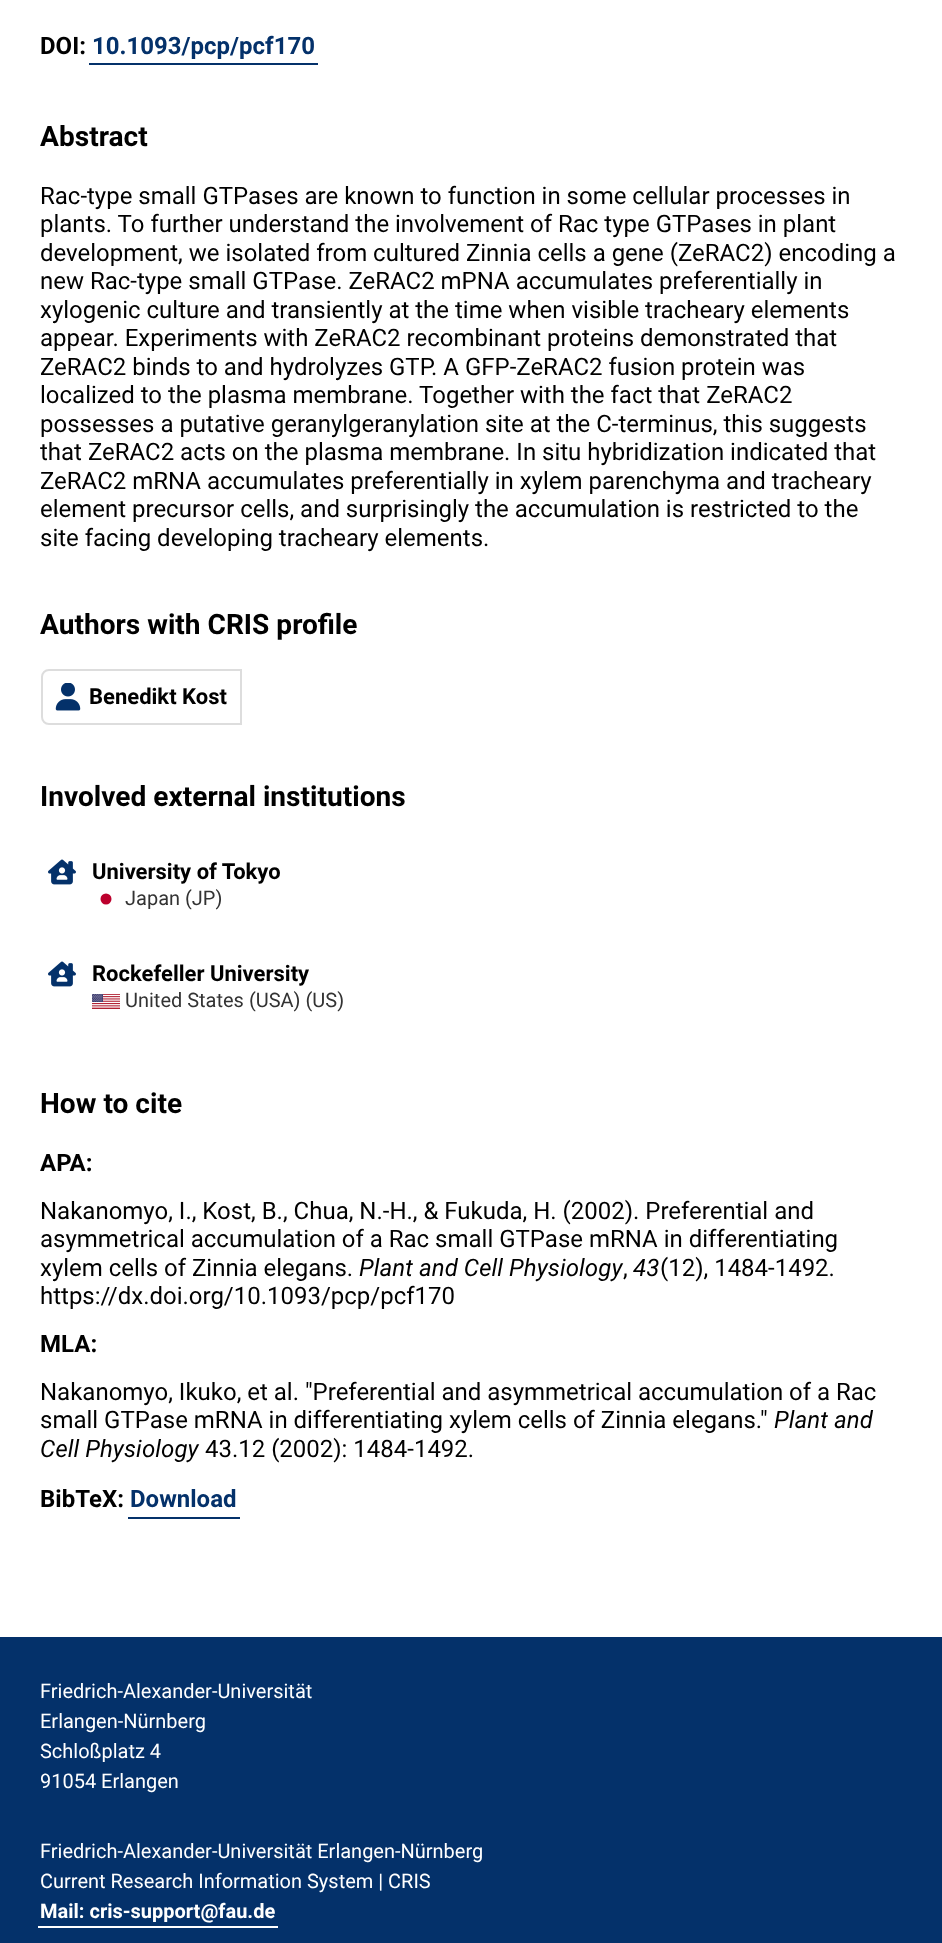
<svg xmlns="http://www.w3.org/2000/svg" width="942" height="1943">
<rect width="100%" height="100%" fill="#fff"/>
<text x="40" y="54" style="font-family:Roboto;font-size:24px;font-weight:bold;fill:#000">DOI:</text>
<text x="92" y="54" style="font-family:Roboto;font-size:24px;font-weight:bold;fill:#04316a">10.1093/pcp/pcf170</text>
<rect x="89" y="63" width="229" height="2" fill="#04316a"/>
<text x="40" y="146" style="font-family:Roboto;font-size:28.1px;font-weight:bold;fill:#000">Abstract</text>
<text x="40" y="204" style="font-family:Roboto;font-size:24px;fill:#000">Rac-type small GTPases are known to function in some cellular processes in</text>
<text x="40" y="232" style="font-family:Roboto;font-size:24px;fill:#000">plants. To further understand the involvement of Rac type GTPases in plant</text>
<text x="40" y="261" style="font-family:Roboto;font-size:24px;fill:#000">development, we isolated from cultured Zinnia cells a gene (ZeRAC2) encoding a</text>
<text x="40" y="289" style="font-family:Roboto;font-size:24px;fill:#000">new Rac-type small GTPase. ZeRAC2 mPNA accumulates preferentially in</text>
<text x="40" y="318" style="font-family:Roboto;font-size:24px;fill:#000">xylogenic culture and transiently at the time when visible tracheary elements</text>
<text x="40" y="346" style="font-family:Roboto;font-size:24px;fill:#000">appear. Experiments with ZeRAC2 recombinant proteins demonstrated that</text>
<text x="40" y="375" style="font-family:Roboto;font-size:24px;fill:#000">ZeRAC2 binds to and hydrolyzes GTP. A GFP-ZeRAC2 fusion protein was</text>
<text x="40" y="403" style="font-family:Roboto;font-size:24px;fill:#000">localized to the plasma membrane. Together with the fact that ZeRAC2</text>
<text x="40" y="432" style="font-family:Roboto;font-size:24px;fill:#000">possesses a putative geranylgeranylation site at the C-terminus, this suggests</text>
<text x="40" y="460" style="font-family:Roboto;font-size:24px;fill:#000">that ZeRAC2 acts on the plasma membrane. In situ hybridization indicated that</text>
<text x="40" y="489" style="font-family:Roboto;font-size:24px;fill:#000">ZeRAC2 mRNA accumulates preferentially in xylem parenchyma and tracheary</text>
<text x="40" y="517" style="font-family:Roboto;font-size:24px;fill:#000">element precursor cells, and surprisingly the accumulation is restricted to the</text>
<text x="40" y="546" style="font-family:Roboto;font-size:24px;fill:#000">site facing developing tracheary elements.</text>
<text x="40" y="634" style="font-family:Roboto;font-size:28.1px;font-weight:bold;fill:#000">Authors with CRIS profile</text>
<path d="M49 670h192v54h-192c-4 0-7-3-7-7v-40c0-4 3-7 7-7z" fill="none" stroke="#ddd" stroke-width="2"/>
<image x="55" y="683" width="26" height="28" href="media/1.png"/>
<text x="89" y="704" style="font-family:Roboto;font-size:22px;font-weight:bold;fill:#000">Benedikt Kost</text>
<text x="40" y="806" style="font-family:Roboto;font-size:28.1px;font-weight:bold;fill:#000">Involved external institutions</text>
<image x="48" y="859" width="28" height="26" href="media/2.png"/>
<text x="92" y="879" style="font-family:Roboto;font-size:22px;font-weight:bold;fill:#000">University of Tokyo</text>
<circle cx="106" cy="899" r="5.5" fill="#bc002d"/>
<text x="125" y="905" style="font-family:Roboto;font-size:20px;fill:#333">Japan (JP)</text>
<image x="48" y="961" width="28" height="26" href="media/2.png"/>
<text x="92" y="981" style="font-family:Roboto;font-size:22px;font-weight:bold;fill:#000">Rockefeller University</text>
<image x="92" y="994" width="28" height="15" href="media/3.png"/>
<text x="125" y="1007" style="font-family:Roboto;font-size:20px;fill:#333">United States (USA) (US)</text>
<text x="40" y="1113" style="font-family:Roboto;font-size:28.1px;font-weight:bold;fill:#000">How to cite</text>
<text x="40" y="1171" style="font-family:Roboto;font-size:24px;font-weight:bold;fill:#000">APA:</text>
<text x="40" y="1219" style="font-family:Roboto;font-size:24px;fill:#000">Nakanomyo, I., Kost, B., Chua, N.-H., &amp; Fukuda, H. (2002). Preferential and</text>
<text x="40" y="1247" style="font-family:Roboto;font-size:24px;fill:#000">asymmetrical accumulation of a Rac small GTPase mRNA in differentiating</text>
<text x="40" y="1276" style="font-family:Roboto;font-size:24px;fill:#000">xylem cells of Zinnia elegans.</text>
<text x="359" y="1276" style="font-family:Roboto;font-size:24px;font-style:italic;fill:#000">Plant and Cell Physiology</text>
<text x="623" y="1276" style="font-family:Roboto;font-size:24px;fill:#000">,</text>
<text x="633" y="1276" style="font-family:Roboto;font-size:24px;font-style:italic;fill:#000">43</text>
<text x="660" y="1276" style="font-family:Roboto;font-size:24px;fill:#000">(12), 1484-1492.</text>
<text x="40" y="1304" style="font-family:Roboto;font-size:24px;fill:#000">https://dx.doi.org/10.1093/pcp/pcf170</text>
<text x="40" y="1352" style="font-family:Roboto;font-size:24px;font-weight:bold;fill:#000">MLA:</text>
<text x="40" y="1400" style="font-family:Roboto;font-size:24px;fill:#000">Nakanomyo, Ikuko, et al. "Preferential and asymmetrical accumulation of a Rac</text>
<text x="40" y="1428" style="font-family:Roboto;font-size:24px;fill:#000">small GTPase mRNA in differentiating xylem cells of Zinnia elegans."</text>
<text x="774" y="1428" style="font-family:Roboto;font-size:24px;font-style:italic;fill:#000">Plant and</text>
<text x="40" y="1457" style="font-family:Roboto;font-size:24px;font-style:italic;fill:#000">Cell Physiology</text>
<text x="205" y="1457" style="font-family:Roboto;font-size:24px;fill:#000">43.12 (2002): 1484-1492.</text>
<text x="40" y="1507" style="font-family:Roboto;font-size:24px;font-weight:bold;fill:#000">BibTeX:</text>
<text x="130" y="1507" style="font-family:Roboto;font-size:24px;font-weight:bold;fill:#04316a">Download</text>
<rect x="128" y="1517" width="112" height="2" fill="#04316a"/>
<rect y="1637" width="942" height="306" fill="#04316a"/>
<text x="40" y="1698" style="font-family:Roboto;font-size:20px;fill:#fff">Friedrich-Alexander-Universität</text>
<text x="40" y="1728" style="font-family:Roboto;font-size:20px;fill:#fff">Erlangen-Nürnberg</text>
<text x="40" y="1758" style="font-family:Roboto;font-size:20px;fill:#fff">Schloßplatz 4</text>
<text x="40" y="1788" style="font-family:Roboto;font-size:20px;fill:#fff">91054 Erlangen</text>
<text x="40" y="1858" style="font-family:Roboto;font-size:20px;fill:#fff">Friedrich-Alexander-Universität Erlangen-Nürnberg</text>
<text x="40" y="1888" style="font-family:Roboto;font-size:20px;fill:#fff">Current Research Information System | CRIS</text>
<text x="40" y="1918" style="font-family:Roboto;font-size:20px;font-weight:bold;fill:#fff">Mail: cris-support@fau.de</text>
<rect x="38" y="1926" width="240" height="2" fill="#fff"/>
</svg>
